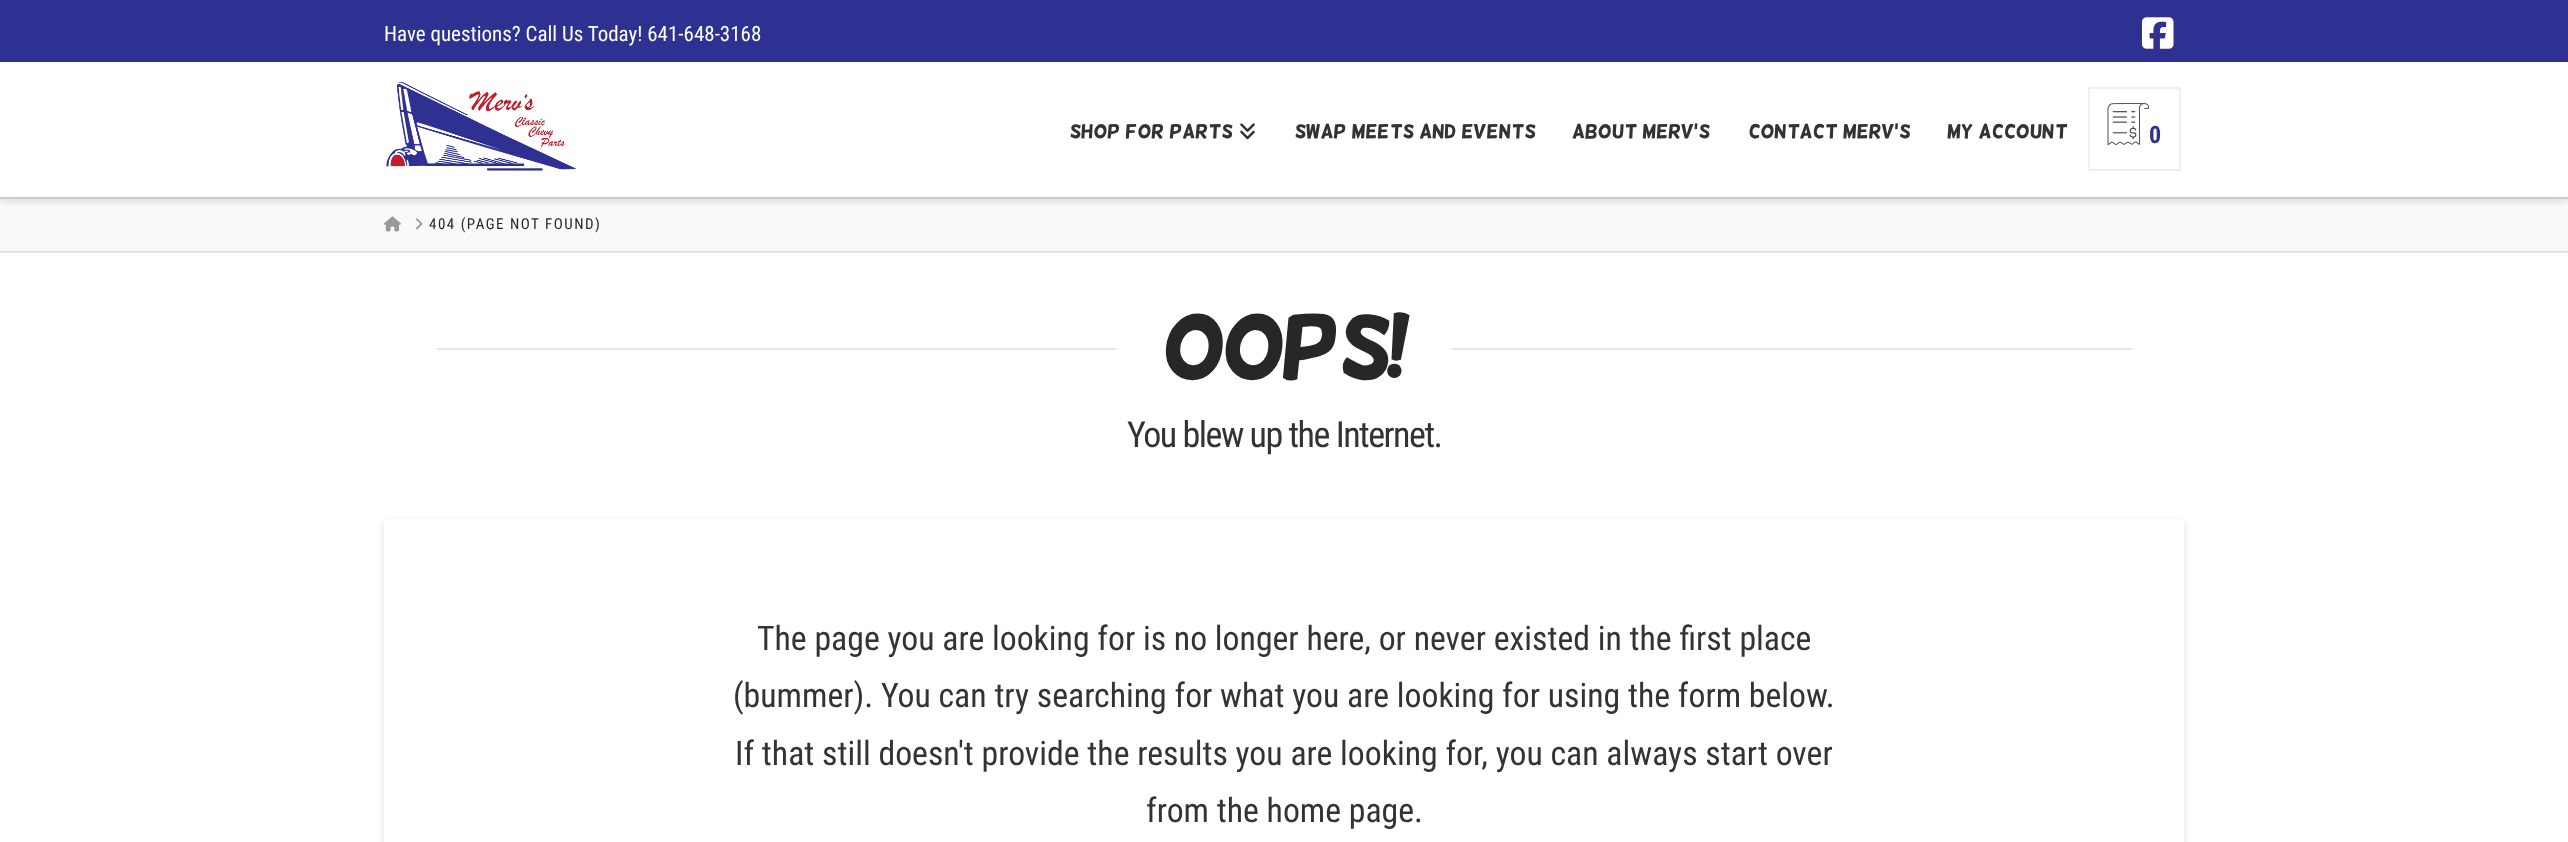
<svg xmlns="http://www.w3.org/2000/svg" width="2568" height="842">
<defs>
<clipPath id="clip1"><rect x="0" y="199" width="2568" height="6"/></clipPath>
</defs>
<rect width="100%" height="100%" fill="#fff"/>
<rect y="252" width="2568" height="1" fill="#e6e6e6"/>
<rect y="199" width="2568" height="52" fill="#f9f9f9"/>
<g clip-path="url(#clip1)">
<rect y="65" width="2568" height="136" fill="#00000021" filter="blur(4px)"/>
</g>
<rect width="2568" height="62" fill="#2e3192"/>
<text x="384" y="41" style="font-family:Roboto Condensed;font-size:21px;fill:#fff">Have questions? Call Us Today! 641-648-3168</text>
<image x="2142" y="17" width="32" height="32" href="media/1.png"/>
<rect y="197" width="2568" height="2" fill="#ccc"/>
<image x="386" y="81" width="191" height="90" href="media/2.png"/>
<text x="1069" y="138" style="font-family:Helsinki;font-size:19.5px;fill:#333">SHOP FOR PARTS</text>
<image x="1240" y="123" width="15" height="17" href="media/3.png"/>
<text x="1294" y="138" style="font-family:Helsinki;font-size:19.5px;fill:#333">SWAP MEETS AND EVENTS</text>
<text x="1572" y="138" style="font-family:Helsinki;font-size:19.5px;fill:#333">ABOUT MERV’S</text>
<text x="1748" y="138" style="font-family:Helsinki;font-size:19.5px;fill:#333">CONTACT MERV’S</text>
<text x="1947" y="138" style="font-family:Helsinki;font-size:19.5px;fill:#333">MY ACCOUNT</text>
<rect x="2089" y="88" width="91" height="82" fill="none" stroke="#efefef" stroke-width="2"/>
<image x="2107" y="103" width="43" height="43" href="media/4.png"/>
<text x="2149" y="143" style="font-family:Roboto Condensed;font-size:24px;font-weight:bold;fill:#2e3192">0</text>
<rect y="251" width="2568" height="1" fill="#e0e0e0"/>
<image x="384" y="216" width="17" height="16" href="media/5.png"/>
<image x="416" y="218" width="7" height="12" href="media/6.png"/>
<text x="429" y="229" style="font-family:Roboto Condensed;font-size:15px;letter-spacing:1.5px;fill:#272727">404 (PAGE NOT FOUND)</text>
<rect x="437" y="348" width="679" height="2" fill="#e6e6e6"/>
<text x="1161" y="378" style="font-family:Helsinki;font-size:90px;letter-spacing:-4.5px;fill:#272727">Oops!</text>
<rect x="1452" y="348" width="680" height="2" fill="#e6e6e6"/>
<text x="1127" y="447" style="font-family:Roboto Condensed;font-size:36px;letter-spacing:-1.5px;fill:#333">You blew up the Internet.</text>
<rect x="384" y="522" width="1800" height="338" rx="6" fill="#00000021" filter="blur(4px)"/>
<rect x="384" y="519" width="1800" height="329" rx="6" fill="#fff"/>
<text x="757" y="650" style="font-family:Roboto Condensed;font-size:33.75px;fill:#333">The page you are looking for is no longer here, or never existed in the first place</text>
<text x="733" y="707" style="font-family:Roboto Condensed;font-size:33.75px;fill:#333">(bummer). You can try searching for what you are looking for using the form below.</text>
<text x="735" y="765" style="font-family:Roboto Condensed;font-size:33.75px;fill:#333">If that still doesn't provide the results you are looking for, you can always start over</text>
<text x="1146" y="822" style="font-family:Roboto Condensed;font-size:33.75px;fill:#333">from the home page.</text>
</svg>
